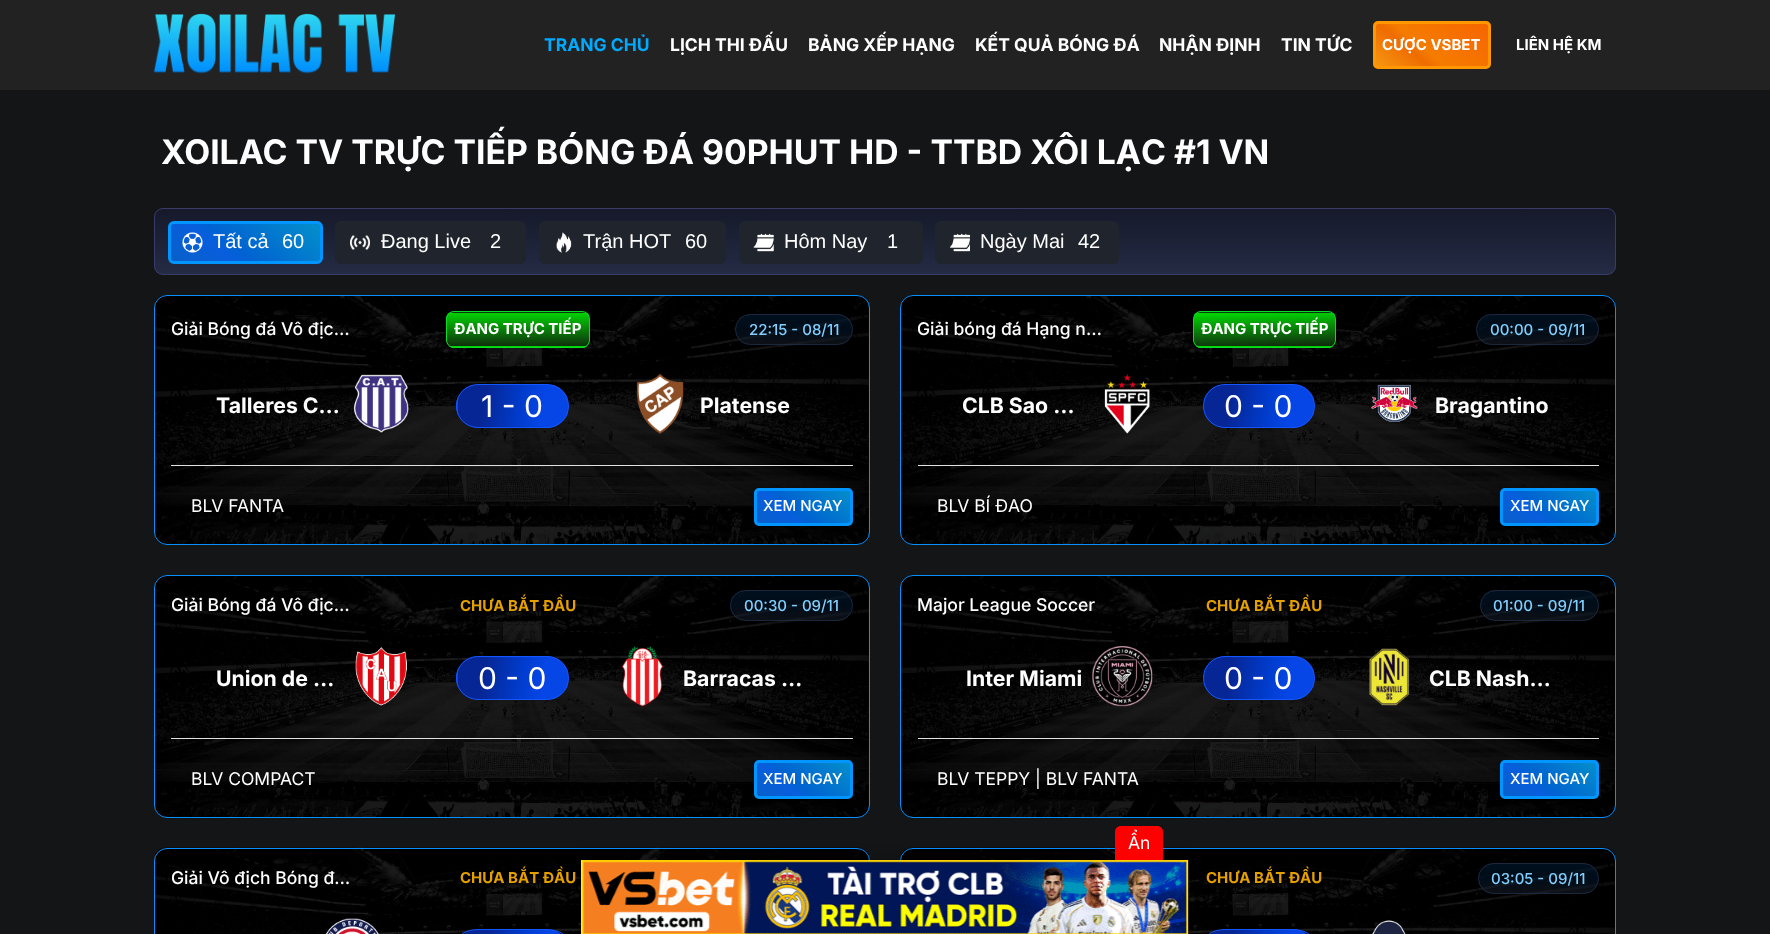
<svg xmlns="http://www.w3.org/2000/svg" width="1770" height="934">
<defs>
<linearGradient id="g1" gradientUnits="userSpaceOnUse" x1="1468" y1="1.8" x2="1373" y2="116"><stop offset="0.06" stop-color="#f76700"/><stop offset="0.43" stop-color="#f57c00"/><stop offset="0.5" stop-color="#ef6c00"/><stop offset="1" stop-color="#ffca28"/></linearGradient>
<clipPath id="clip1"><rect x="154" y="208" width="1462" height="67" rx="9"/></clipPath>
<linearGradient id="g2" gradientUnits="userSpaceOnUse" x1="885" y1="274" x2="885" y2="209"><stop offset="0" stop-color="#242b44"/><stop offset="1" stop-color="#15192a"/></linearGradient>
<linearGradient id="g3" gradientUnits="userSpaceOnUse" x1="287" y1="192" x2="176" y2="325"><stop offset="0.06" stop-color="#048bcb"/><stop offset="0.43" stop-color="#0063d1"/><stop offset="0.5" stop-color="#085edd"/><stop offset="1" stop-color="#0861b1"/></linearGradient>
<clipPath id="clip2"><rect x="446" y="311" width="144" height="37" rx="8"/></clipPath>
<linearGradient id="g4" gradientUnits="userSpaceOnUse" x1="518" y1="278" x2="518" y2="314"><stop offset="0" stop-color="#00db02"/><stop offset="1" stop-color="#102b0e"/></linearGradient>
<linearGradient id="g5" gradientUnits="userSpaceOnUse" x1="377" y1="311" x2="377" y2="347"><stop offset="0" stop-color="#00db02"/><stop offset="1" stop-color="#102b0e"/></linearGradient>
<linearGradient id="g6" gradientUnits="userSpaceOnUse" x1="518" y1="311" x2="518" y2="347"><stop offset="0" stop-color="#00db02"/><stop offset="1" stop-color="#102b0e"/></linearGradient>
<linearGradient id="g7" gradientUnits="userSpaceOnUse" x1="518" y1="345" x2="518" y2="381"><stop offset="0" stop-color="#00db02"/><stop offset="1" stop-color="#102b0e"/></linearGradient>
<clipPath id="clip3"><rect x="735" y="314" width="118" height="31" rx="15.5"/></clipPath>
<linearGradient id="g8" gradientUnits="userSpaceOnUse" x1="794" y1="315" x2="794" y2="344"><stop offset="0" stop-color="#001f3b" stop-opacity="0.5"/><stop offset="0.5" stop-color="#001931" stop-opacity="0.5"/><stop offset="1" stop-color="#1a1f2b" stop-opacity="0.5"/></linearGradient>
<linearGradient id="g9" gradientUnits="userSpaceOnUse" x1="794" y1="286" x2="794" y2="315"><stop offset="0" stop-color="#001f3b" stop-opacity="0.5"/><stop offset="0.5" stop-color="#001931" stop-opacity="0.5"/><stop offset="1" stop-color="#1a1f2b" stop-opacity="0.5"/></linearGradient>
<linearGradient id="g10" gradientUnits="userSpaceOnUse" x1="794" y1="344" x2="794" y2="373"><stop offset="0" stop-color="#001f3b" stop-opacity="0.5"/><stop offset="0.5" stop-color="#001931" stop-opacity="0.5"/><stop offset="1" stop-color="#1a1f2b" stop-opacity="0.5"/></linearGradient>
<clipPath id="clip4"><rect x="456" y="384" width="113" height="44" rx="22"/></clipPath>
<linearGradient id="g11" gradientUnits="userSpaceOnUse" x1="459" y1="416" x2="346" y2="396"><stop offset="0.23" stop-color="#0646e7"/><stop offset="0.44" stop-color="#003bcb"/><stop offset="0.75" stop-color="#072695"/></linearGradient>
<linearGradient id="g12" gradientUnits="userSpaceOnUse" x1="569" y1="416" x2="456" y2="396"><stop offset="0.23" stop-color="#0646e7"/><stop offset="0.44" stop-color="#003bcb"/><stop offset="0.75" stop-color="#072695"/></linearGradient>
<linearGradient id="g13" gradientUnits="userSpaceOnUse" x1="569" y1="457" x2="456" y2="437"><stop offset="0.23" stop-color="#0646e7"/><stop offset="0.44" stop-color="#003bcb"/><stop offset="0.75" stop-color="#072695"/></linearGradient>
<linearGradient id="g14" gradientUnits="userSpaceOnUse" x1="833" y1="471" x2="754" y2="565"><stop offset="0.06" stop-color="#048bcb"/><stop offset="0.43" stop-color="#0063d1"/><stop offset="0.5" stop-color="#085edd"/><stop offset="1" stop-color="#0861b1"/></linearGradient>
<clipPath id="clip5"><rect x="1193" y="311" width="143" height="37" rx="8"/></clipPath>
<linearGradient id="g15" gradientUnits="userSpaceOnUse" x1="1264" y1="278" x2="1265" y2="314"><stop offset="0" stop-color="#00db02"/><stop offset="1" stop-color="#102b0e"/></linearGradient>
<linearGradient id="g16" gradientUnits="userSpaceOnUse" x1="1264" y1="311" x2="1265" y2="347"><stop offset="0" stop-color="#00db02"/><stop offset="1" stop-color="#102b0e"/></linearGradient>
<linearGradient id="g17" gradientUnits="userSpaceOnUse" x1="1264" y1="345" x2="1265" y2="381"><stop offset="0" stop-color="#00db02"/><stop offset="1" stop-color="#102b0e"/></linearGradient>
<clipPath id="clip6"><rect x="1476" y="314" width="123" height="31" rx="15.5"/></clipPath>
<linearGradient id="g18" gradientUnits="userSpaceOnUse" x1="1538" y1="315" x2="1538" y2="344"><stop offset="0" stop-color="#001f3b" stop-opacity="0.5"/><stop offset="0.5" stop-color="#001931" stop-opacity="0.5"/><stop offset="1" stop-color="#1a1f2b" stop-opacity="0.5"/></linearGradient>
<linearGradient id="g19" gradientUnits="userSpaceOnUse" x1="1538" y1="286" x2="1538" y2="315"><stop offset="0" stop-color="#001f3b" stop-opacity="0.5"/><stop offset="0.5" stop-color="#001931" stop-opacity="0.5"/><stop offset="1" stop-color="#1a1f2b" stop-opacity="0.5"/></linearGradient>
<linearGradient id="g20" gradientUnits="userSpaceOnUse" x1="1538" y1="344" x2="1538" y2="373"><stop offset="0" stop-color="#001f3b" stop-opacity="0.5"/><stop offset="0.5" stop-color="#001931" stop-opacity="0.5"/><stop offset="1" stop-color="#1a1f2b" stop-opacity="0.5"/></linearGradient>
<clipPath id="clip7"><rect x="1203" y="384" width="112" height="44" rx="22"/></clipPath>
<linearGradient id="g21" gradientUnits="userSpaceOnUse" x1="1316" y1="416" x2="1202" y2="396"><stop offset="0.23" stop-color="#0646e7"/><stop offset="0.44" stop-color="#003bcb"/><stop offset="0.75" stop-color="#072695"/></linearGradient>
<linearGradient id="g22" gradientUnits="userSpaceOnUse" x1="1316" y1="457" x2="1202" y2="437"><stop offset="0.23" stop-color="#0646e7"/><stop offset="0.44" stop-color="#003bcb"/><stop offset="0.75" stop-color="#072695"/></linearGradient>
<linearGradient id="g23" gradientUnits="userSpaceOnUse" x1="1579" y1="471" x2="1500" y2="565"><stop offset="0.06" stop-color="#048bcb"/><stop offset="0.43" stop-color="#0063d1"/><stop offset="0.5" stop-color="#085edd"/><stop offset="1" stop-color="#0861b1"/></linearGradient>
<clipPath id="clip8"><rect x="730" y="590" width="123" height="31" rx="15.5"/></clipPath>
<linearGradient id="g24" gradientUnits="userSpaceOnUse" x1="791" y1="591" x2="791" y2="620"><stop offset="0" stop-color="#001f3b" stop-opacity="0.5"/><stop offset="0.5" stop-color="#001931" stop-opacity="0.5"/><stop offset="1" stop-color="#1a1f2b" stop-opacity="0.5"/></linearGradient>
<linearGradient id="g25" gradientUnits="userSpaceOnUse" x1="791" y1="563" x2="791" y2="591"><stop offset="0" stop-color="#001f3b" stop-opacity="0.5"/><stop offset="0.5" stop-color="#001931" stop-opacity="0.5"/><stop offset="1" stop-color="#1a1f2b" stop-opacity="0.5"/></linearGradient>
<linearGradient id="g26" gradientUnits="userSpaceOnUse" x1="791" y1="620" x2="791" y2="649"><stop offset="0" stop-color="#001f3b" stop-opacity="0.5"/><stop offset="0.5" stop-color="#001931" stop-opacity="0.5"/><stop offset="1" stop-color="#1a1f2b" stop-opacity="0.5"/></linearGradient>
<clipPath id="clip9"><rect x="456" y="656" width="113" height="44" rx="22"/></clipPath>
<linearGradient id="g27" gradientUnits="userSpaceOnUse" x1="569" y1="647" x2="456" y2="627"><stop offset="0.23" stop-color="#0646e7"/><stop offset="0.44" stop-color="#003bcb"/><stop offset="0.75" stop-color="#072695"/></linearGradient>
<linearGradient id="g28" gradientUnits="userSpaceOnUse" x1="459" y1="688" x2="346" y2="668"><stop offset="0.23" stop-color="#0646e7"/><stop offset="0.44" stop-color="#003bcb"/><stop offset="0.75" stop-color="#072695"/></linearGradient>
<linearGradient id="g29" gradientUnits="userSpaceOnUse" x1="569" y1="688" x2="456" y2="668"><stop offset="0.23" stop-color="#0646e7"/><stop offset="0.44" stop-color="#003bcb"/><stop offset="0.75" stop-color="#072695"/></linearGradient>
<linearGradient id="g30" gradientUnits="userSpaceOnUse" x1="833" y1="744" x2="754" y2="838"><stop offset="0.06" stop-color="#048bcb"/><stop offset="0.43" stop-color="#0063d1"/><stop offset="0.5" stop-color="#085edd"/><stop offset="1" stop-color="#0861b1"/></linearGradient>
<clipPath id="clip10"><rect x="1480" y="590" width="119" height="31" rx="15.5"/></clipPath>
<linearGradient id="g31" gradientUnits="userSpaceOnUse" x1="1539" y1="591" x2="1539" y2="620"><stop offset="0" stop-color="#001f3b" stop-opacity="0.5"/><stop offset="0.5" stop-color="#001931" stop-opacity="0.5"/><stop offset="1" stop-color="#1a1f2b" stop-opacity="0.5"/></linearGradient>
<linearGradient id="g32" gradientUnits="userSpaceOnUse" x1="1539" y1="563" x2="1539" y2="591"><stop offset="0" stop-color="#001f3b" stop-opacity="0.5"/><stop offset="0.5" stop-color="#001931" stop-opacity="0.5"/><stop offset="1" stop-color="#1a1f2b" stop-opacity="0.5"/></linearGradient>
<linearGradient id="g33" gradientUnits="userSpaceOnUse" x1="1539" y1="620" x2="1539" y2="649"><stop offset="0" stop-color="#001f3b" stop-opacity="0.5"/><stop offset="0.5" stop-color="#001931" stop-opacity="0.5"/><stop offset="1" stop-color="#1a1f2b" stop-opacity="0.5"/></linearGradient>
<clipPath id="clip11"><rect x="1203" y="656" width="112" height="44" rx="22"/></clipPath>
<linearGradient id="g34" gradientUnits="userSpaceOnUse" x1="1316" y1="647" x2="1202" y2="627"><stop offset="0.23" stop-color="#0646e7"/><stop offset="0.44" stop-color="#003bcb"/><stop offset="0.75" stop-color="#072695"/></linearGradient>
<linearGradient id="g35" gradientUnits="userSpaceOnUse" x1="1316" y1="688" x2="1202" y2="668"><stop offset="0.23" stop-color="#0646e7"/><stop offset="0.44" stop-color="#003bcb"/><stop offset="0.75" stop-color="#072695"/></linearGradient>
<linearGradient id="g36" gradientUnits="userSpaceOnUse" x1="1579" y1="744" x2="1500" y2="838"><stop offset="0.06" stop-color="#048bcb"/><stop offset="0.43" stop-color="#0063d1"/><stop offset="0.5" stop-color="#085edd"/><stop offset="1" stop-color="#0861b1"/></linearGradient>
<clipPath id="clip12"><rect x="456" y="929" width="113" height="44" rx="22"/></clipPath>
<linearGradient id="g37" gradientUnits="userSpaceOnUse" x1="569" y1="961" x2="456" y2="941"><stop offset="0.23" stop-color="#0646e7"/><stop offset="0.44" stop-color="#003bcb"/><stop offset="0.75" stop-color="#072695"/></linearGradient>
<clipPath id="clip13"><rect x="1478" y="863" width="121" height="31" rx="15.5"/></clipPath>
<linearGradient id="g38" gradientUnits="userSpaceOnUse" x1="1538" y1="864" x2="1538" y2="893"><stop offset="0" stop-color="#001f3b" stop-opacity="0.5"/><stop offset="0.5" stop-color="#001931" stop-opacity="0.5"/><stop offset="1" stop-color="#1a1f2b" stop-opacity="0.5"/></linearGradient>
<linearGradient id="g39" gradientUnits="userSpaceOnUse" x1="1538" y1="835" x2="1538" y2="864"><stop offset="0" stop-color="#001f3b" stop-opacity="0.5"/><stop offset="0.5" stop-color="#001931" stop-opacity="0.5"/><stop offset="1" stop-color="#1a1f2b" stop-opacity="0.5"/></linearGradient>
<linearGradient id="g40" gradientUnits="userSpaceOnUse" x1="1538" y1="893" x2="1538" y2="921"><stop offset="0" stop-color="#001f3b" stop-opacity="0.5"/><stop offset="0.5" stop-color="#001931" stop-opacity="0.5"/><stop offset="1" stop-color="#1a1f2b" stop-opacity="0.5"/></linearGradient>
<clipPath id="clip14"><rect x="1203" y="929" width="112" height="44" rx="22"/></clipPath>
<linearGradient id="g41" gradientUnits="userSpaceOnUse" x1="1316" y1="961" x2="1202" y2="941"><stop offset="0.23" stop-color="#0646e7"/><stop offset="0.44" stop-color="#003bcb"/><stop offset="0.75" stop-color="#072695"/></linearGradient>
</defs>
<rect width="100%" height="100%" fill="#141516"/>
<rect width="1770" height="90" fill="#222"/>
<image x="153" y="13" width="242" height="61" href="media/1.png"/>
<text x="544" y="51" style="font-family:Inter;font-size:17.5px;font-weight:bold;fill:#0af">TRANG CHỦ</text>
<text x="670" y="51" style="font-family:Inter;font-size:17.5px;font-weight:bold;fill:#fff">LỊCH THI ĐẤU</text>
<text x="808" y="51" style="font-family:Inter;font-size:17.5px;font-weight:bold;fill:#fff">BẢNG XẾP HẠNG</text>
<text x="975" y="51" style="font-family:Inter;font-size:17.5px;font-weight:bold;fill:#fff">KẾT QUẢ BÓNG ĐÁ</text>
<text x="1159" y="51" style="font-family:Inter;font-size:17.5px;font-weight:bold;fill:#fff">NHẬN ĐỊNH</text>
<text x="1281" y="51" style="font-family:Inter;font-size:17.5px;font-weight:bold;fill:#fff">TIN TỨC</text>
<rect x="1374.5" y="22.5" width="115" height="45" rx="3.5" fill="url(#g1)" stroke="#ff9800" stroke-width="3"/>
<text x="1382" y="50" style="font-family:Inter;font-size:15px;font-weight:bold;fill:#fff">CƯỢC VSBET</text>
<text x="1516" y="50" style="font-family:Inter;font-size:15px;font-weight:bold;fill:#fff">LIÊN HỆ KM</text>
<text x="161" y="164" style="font-family:Inter;font-size:33.75px;font-weight:bold;fill:#fff">XOILAC TV TRỰC TIẾP BÓNG ĐÁ 90PHUT HD - TTBD XÔI LẠC #1 VN</text>
<g clip-path="url(#clip1)">
<rect x="154" y="209" width="1462" height="65" fill="url(#g2)"/>
</g>
<rect x="154.5" y="208.5" width="1461" height="66" rx="8.5" fill="none" stroke="#3a3b6b"/>
<rect x="169.5" y="222.5" width="152" height="40" rx="4.5" fill="url(#g3)" stroke="#0095ff" stroke-width="3"/>
<image x="182" y="232" width="21" height="21" href="media/2.png"/>
<text x="213" y="248" style="font-family:Liberation Sans;font-size:20px;fill:#fff">Tất cả</text>
<text x="282" y="248" style="font-family:Liberation Sans;font-size:20px;fill:#fff">60</text>
<rect x="335" y="221" width="191" height="43" rx="6" fill="#20242c"/>
<image x="350" y="235" width="20" height="15" href="media/3.png"/>
<text x="381" y="248" style="font-family:Liberation Sans;font-size:20px;fill:#fff">Đang Live</text>
<text x="490" y="248" style="font-family:Liberation Sans;font-size:20px;fill:#fff">2</text>
<rect x="539" y="221" width="187" height="43" rx="6" fill="#20242c"/>
<image x="556" y="232" width="16" height="21" href="media/4.png"/>
<text x="583" y="248" style="font-family:Liberation Sans;font-size:20px;fill:#fff">Trận HOT</text>
<text x="685" y="248" style="font-family:Liberation Sans;font-size:20px;fill:#fff">60</text>
<rect x="739" y="221" width="184" height="43" rx="6" fill="#20242c"/>
<image x="753" y="233" width="21" height="19" href="media/5.png"/>
<text x="784" y="248" style="font-family:Liberation Sans;font-size:20px;fill:#fff">Hôm Nay</text>
<text x="887" y="248" style="font-family:Liberation Sans;font-size:20px;fill:#fff">1</text>
<rect x="935" y="221" width="184" height="43" rx="6" fill="#20242c"/>
<image x="950" y="233" width="20" height="19" href="media/6.png"/>
<text x="980" y="248" style="font-family:Liberation Sans;font-size:20px;fill:#fff">Ngày Mai</text>
<text x="1078" y="248" style="font-family:Liberation Sans;font-size:20px;fill:#fff">42</text>
<image x="155" y="295" width="714" height="250" href="media/7.png"/>
<rect x="154.5" y="295.5" width="715" height="249" rx="12.5" fill="none" stroke="#078fff"/>
<text x="171" y="335" style="font-family:Inter;font-size:17.5px;font-weight:500;fill:#fff">Giải Bóng đá Vô địc…</text>
<g clip-path="url(#clip2)">
<rect x="448" y="311" width="141" height="2" fill="url(#g4)"/>
<rect x="446" y="313" width="2" height="33" fill="url(#g5)"/>
<rect x="448" y="313" width="141" height="33" fill="url(#g6)"/>
<rect x="448" y="346" width="141" height="2" fill="url(#g7)"/>
</g>
<rect x="446.5" y="311.5" width="143" height="36" rx="7.5" fill="none" stroke="#09db2a"/>
<text x="454" y="334" style="font-family:Inter;font-size:15px;font-weight:bold;fill:#fff">ĐANG TRỰC TIẾP</text>
<g clip-path="url(#clip3)">
<rect x="735" y="315" width="118" height="29" fill="url(#g8)"/>
<rect x="745" y="314" width="98" height="1" fill="url(#g9)"/>
<rect x="745" y="344" width="98" height="1" fill="url(#g10)"/>
</g>
<rect x="735.5" y="314.5" width="117" height="30" rx="15" fill="none" stroke="#232f47bf"/>
<text x="749" y="335" style="font-family:Inter;font-size:15px;font-weight:500;fill:#7fd0ff">22:15 - 08/11</text>
<text x="216" y="413" style="font-family:Inter;font-size:21.25px;font-weight:bold;fill:#fff">Talleres C…</text>
<image x="353" y="374" width="56" height="59" href="media/8.png"/>
<g clip-path="url(#clip4)">
<rect x="456" y="397" width="2" height="18" fill="url(#g11)"/>
<rect x="458" y="385" width="110" height="41" fill="url(#g12)"/>
<rect x="469" y="426" width="87" height="2" fill="url(#g13)"/>
</g>
<rect x="456.5" y="384.5" width="112" height="43" rx="21.5" fill="none" stroke="#1456ff"/>
<text x="481" y="417" style="font-family:Inter;font-size:30px;fill:#fff">1 - 0</text>
<image x="636" y="373" width="48" height="61" href="media/9.png"/>
<text x="700" y="413" style="font-family:Inter;font-size:21.25px;font-weight:bold;fill:#fff">Platense</text>
<rect x="171" y="465" width="682" height="1" fill="#e1e1e1"/>
<text x="191" y="512" style="font-family:Inter;font-size:17.5px;fill:#fff">BLV FANTA</text>
<rect x="755.5" y="489.5" width="96" height="35" rx="3.5" fill="url(#g14)" stroke="#0095ff" stroke-width="3"/>
<text x="763" y="511" style="font-family:Inter;font-size:15px;font-weight:500;fill:#fff">XEM NGAY</text>
<image x="901" y="295" width="714" height="250" href="media/10.png"/>
<rect x="900.5" y="295.5" width="715" height="249" rx="12.5" fill="none" stroke="#078fff"/>
<text x="917" y="335" style="font-family:Inter;font-size:17.5px;font-weight:500;fill:#fff">Giải bóng đá Hạng n…</text>
<g clip-path="url(#clip5)">
<rect x="1194" y="311" width="141" height="2" fill="url(#g15)"/>
<rect x="1194" y="313" width="141" height="33" fill="url(#g16)"/>
<rect x="1194" y="346" width="141" height="2" fill="url(#g17)"/>
</g>
<rect x="1193.5" y="311.5" width="142" height="36" rx="7.5" fill="none" stroke="#09db2a"/>
<text x="1201" y="334" style="font-family:Inter;font-size:15px;font-weight:bold;fill:#fff">ĐANG TRỰC TIẾP</text>
<g clip-path="url(#clip6)">
<rect x="1476" y="315" width="123" height="29" fill="url(#g18)"/>
<rect x="1486" y="314" width="103" height="1" fill="url(#g19)"/>
<rect x="1486" y="344" width="103" height="1" fill="url(#g20)"/>
</g>
<rect x="1476.5" y="314.5" width="122" height="30" rx="15" fill="none" stroke="#232f47bf"/>
<text x="1490" y="335" style="font-family:Inter;font-size:15px;font-weight:500;fill:#7fd0ff">00:00 - 09/11</text>
<text x="962" y="413" style="font-family:Inter;font-size:21.25px;font-weight:bold;fill:#fff">CLB Sao …</text>
<image x="1104" y="373" width="46" height="61" href="media/11.png"/>
<g clip-path="url(#clip7)">
<rect x="1204" y="385" width="110" height="41" fill="url(#g21)"/>
<rect x="1216" y="426" width="86" height="2" fill="url(#g22)"/>
</g>
<rect x="1203.5" y="384.5" width="111" height="43" rx="21.5" fill="none" stroke="#1456ff"/>
<text x="1224" y="417" style="font-family:Inter;font-size:30px;fill:#fff">0 - 0</text>
<image x="1371" y="384" width="47" height="38" href="media/12.png"/>
<text x="1435" y="413" style="font-family:Inter;font-size:21.25px;font-weight:bold;fill:#fff">Bragantino</text>
<rect x="918" y="465" width="681" height="1" fill="#e1e1e1"/>
<text x="937" y="512" style="font-family:Inter;font-size:17.5px;fill:#fff">BLV BÍ ĐAO</text>
<rect x="1501.5" y="489.5" width="96" height="35" rx="3.5" fill="url(#g23)" stroke="#0095ff" stroke-width="3"/>
<text x="1510" y="511" style="font-family:Inter;font-size:15px;font-weight:500;fill:#fff">XEM NGAY</text>
<image x="155" y="575" width="714" height="243" href="media/13.png"/>
<rect x="154.5" y="575.5" width="715" height="242" rx="12.5" fill="none" stroke="#078fff"/>
<text x="171" y="611" style="font-family:Inter;font-size:17.5px;font-weight:500;fill:#fff">Giải Bóng đá Vô địc…</text>
<text x="460" y="611" style="font-family:Inter;font-size:15px;font-weight:bold;fill:#e5a000">CHƯA BẮT ĐẦU</text>
<g clip-path="url(#clip8)">
<rect x="730" y="591" width="123" height="29" fill="url(#g24)"/>
<rect x="740" y="590" width="103" height="1" fill="url(#g25)"/>
<rect x="740" y="620" width="103" height="1" fill="url(#g26)"/>
</g>
<rect x="730.5" y="590.5" width="122" height="30" rx="15" fill="none" stroke="#232f47bf"/>
<text x="744" y="611" style="font-family:Inter;font-size:15px;font-weight:500;fill:#7fd0ff">00:30 - 09/11</text>
<text x="216" y="686" style="font-family:Inter;font-size:21.25px;font-weight:bold;fill:#fff">Union de …</text>
<image x="355" y="647" width="52" height="59" href="media/14.png"/>
<g clip-path="url(#clip9)">
<rect x="469" y="656" width="87" height="2" fill="url(#g27)"/>
<rect x="456" y="669" width="2" height="18" fill="url(#g28)"/>
<rect x="458" y="658" width="110" height="41" fill="url(#g29)"/>
</g>
<rect x="456.5" y="656.5" width="112" height="43" rx="21.5" fill="none" stroke="#1456ff"/>
<text x="478" y="689" style="font-family:Inter;font-size:30px;fill:#fff">0 - 0</text>
<image x="621" y="646" width="43" height="61" href="media/15.png"/>
<text x="683" y="686" style="font-family:Inter;font-size:21.25px;font-weight:bold;fill:#fff">Barracas …</text>
<rect x="171" y="738" width="682" height="1" fill="#e1e1e1"/>
<text x="191" y="785" style="font-family:Inter;font-size:17.5px;fill:#fff">BLV COMPACT</text>
<rect x="755.5" y="761.5" width="96" height="36" rx="3.5" fill="url(#g30)" stroke="#0095ff" stroke-width="3"/>
<text x="763" y="784" style="font-family:Inter;font-size:15px;font-weight:500;fill:#fff">XEM NGAY</text>
<image x="901" y="575" width="714" height="243" href="media/16.png"/>
<rect x="900.5" y="575.5" width="715" height="242" rx="12.5" fill="none" stroke="#078fff"/>
<text x="917" y="611" style="font-family:Inter;font-size:17.5px;font-weight:500;fill:#fff">Major League Soccer</text>
<text x="1206" y="611" style="font-family:Inter;font-size:15px;font-weight:bold;fill:#e5a000">CHƯA BẮT ĐẦU</text>
<g clip-path="url(#clip10)">
<rect x="1480" y="591" width="119" height="29" fill="url(#g31)"/>
<rect x="1490" y="590" width="99" height="1" fill="url(#g32)"/>
<rect x="1490" y="620" width="99" height="1" fill="url(#g33)"/>
</g>
<rect x="1480.5" y="590.5" width="118" height="30" rx="15" fill="none" stroke="#232f47bf"/>
<text x="1493" y="611" style="font-family:Inter;font-size:15px;font-weight:500;fill:#7fd0ff">01:00 - 09/11</text>
<text x="966" y="686" style="font-family:Inter;font-size:21.25px;font-weight:bold;fill:#fff">Inter Miami</text>
<image x="1092" y="646" width="61" height="61" href="media/17.png"/>
<g clip-path="url(#clip11)">
<rect x="1216" y="656" width="86" height="2" fill="url(#g34)"/>
<rect x="1204" y="658" width="110" height="41" fill="url(#g35)"/>
</g>
<rect x="1203.5" y="656.5" width="111" height="43" rx="21.5" fill="none" stroke="#1456ff"/>
<text x="1224" y="689" style="font-family:Inter;font-size:30px;fill:#fff">0 - 0</text>
<image x="1369" y="648" width="41" height="58" href="media/18.png"/>
<text x="1429" y="686" style="font-family:Inter;font-size:21.25px;font-weight:bold;fill:#fff">CLB Nash…</text>
<rect x="918" y="738" width="681" height="1" fill="#e1e1e1"/>
<text x="937" y="785" style="font-family:Inter;font-size:17.5px;fill:#fff">BLV TEPPY | BLV FANTA</text>
<rect x="1501.5" y="761.5" width="96" height="36" rx="3.5" fill="url(#g36)" stroke="#0095ff" stroke-width="3"/>
<text x="1510" y="784" style="font-family:Inter;font-size:15px;font-weight:500;fill:#fff">XEM NGAY</text>
<image x="155" y="847" width="714" height="87" href="media/19.png"/>
<rect x="154.5" y="848.5" width="715" height="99" rx="12.5" fill="none" stroke="#078fff"/>
<text x="171" y="884" style="font-family:Inter;font-size:17.5px;font-weight:500;fill:#fff">Giải Vô địch Bóng đ…</text>
<text x="460" y="883" style="font-family:Inter;font-size:15px;font-weight:bold;fill:#e5a000">CHƯA BẮT ĐẦU</text>
<image x="325" y="918" width="54" height="16" href="media/20.png"/>
<g clip-path="url(#clip12)">
<rect x="458" y="930" width="110" height="4" fill="url(#g37)"/>
</g>
<rect x="456.5" y="929.5" width="112" height="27" rx="21.5" fill="none" stroke="#1456ff"/>
<image x="901" y="847" width="714" height="87" href="media/21.png"/>
<rect x="900.5" y="848.5" width="715" height="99" rx="12.5" fill="none" stroke="#078fff"/>
<text x="1206" y="883" style="font-family:Inter;font-size:15px;font-weight:bold;fill:#e5a000">CHƯA BẮT ĐẦU</text>
<g clip-path="url(#clip13)">
<rect x="1478" y="864" width="121" height="29" fill="url(#g38)"/>
<rect x="1488" y="863" width="101" height="1" fill="url(#g39)"/>
<rect x="1488" y="893" width="101" height="1" fill="url(#g40)"/>
</g>
<rect x="1478.5" y="863.5" width="120" height="30" rx="15" fill="none" stroke="#232f47bf"/>
<text x="1491" y="884" style="font-family:Inter;font-size:15px;font-weight:500;fill:#7fd0ff">03:05 - 09/11</text>
<image x="1372" y="920" width="34" height="14" href="media/22.png"/>
<g clip-path="url(#clip14)">
<rect x="1204" y="930" width="110" height="4" fill="url(#g41)"/>
</g>
<rect x="1203.5" y="929.5" width="111" height="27" rx="21.5" fill="none" stroke="#1456ff"/>
<rect x="581" y="858" width="607" height="75" fill="#00000033" filter="blur(6px)"/>
<rect x="581" y="860" width="607" height="74" fill="#fff"/>
<path d="M1121 826h36c3.5 0 6 2.5 6 6v28h-48v-28c0-3.5 2.5-6 6-6z" fill="#f00"/>
<text x="1128" y="849" style="font-family:Inter;font-size:17.5px;fill:#fff">Ẩn</text>
<image x="581" y="860" width="608" height="74" href="media/23.png"/>
</svg>
